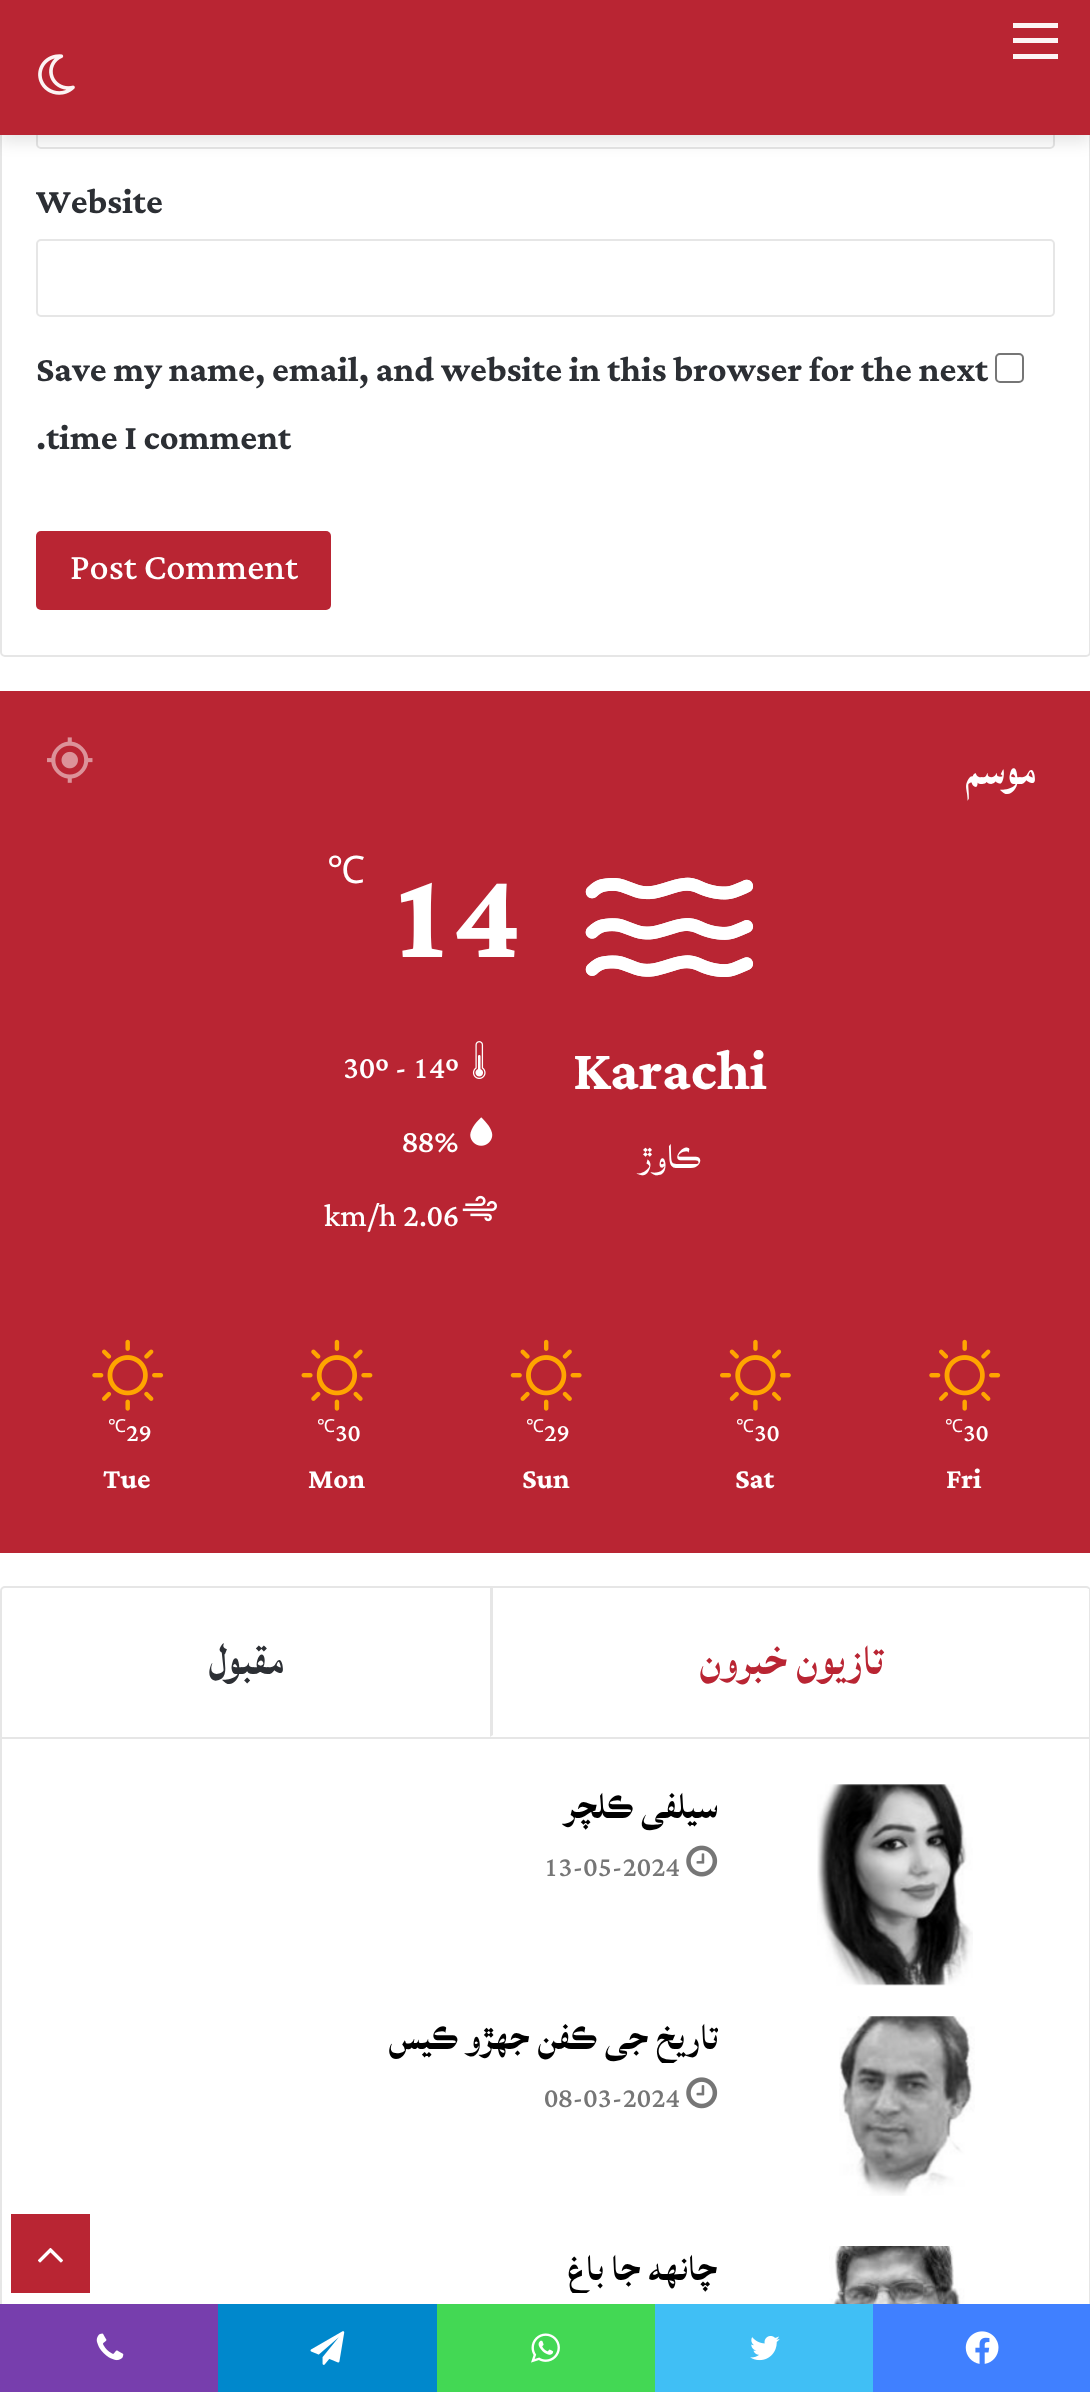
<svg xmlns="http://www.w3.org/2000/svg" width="1090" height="2392">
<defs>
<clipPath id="clip1"><rect x="47" y="1784" width="671" height="48"/></clipPath>
<clipPath id="clip2"><rect x="47" y="2016" width="671" height="47"/></clipPath>
<clipPath id="clip3"><rect x="47" y="2246" width="671" height="47"/></clipPath>
</defs>
<rect width="100%" height="100%" fill="#fff"/>
<rect x="1" y="-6" width="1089" height="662" rx="4" fill="none" stroke="#e6e6e6" stroke-width="2"/>
<rect x="37" y="71" width="1017" height="77" rx="4" fill="none" stroke="#e6e6e6" stroke-width="2"/>
<rect y="7" width="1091" height="135" fill="#0000001a" filter="blur(8px)"/>
<rect width="1090" height="135" fill="#b92533"/>
<rect x="1013" y="38" width="45" height="5" fill="#fcf4f5"/>
<rect x="1013" y="23" width="45" height="5" fill="#fcf4f5"/>
<rect x="1013" y="54" width="45" height="5" fill="#fcf4f5"/>
<image x="38" y="54" width="37" height="41" href="media/1.png"/>
<text x="36" y="213" style="font-family:Lateef;font-size:45px;font-weight:bold;fill:#2c2f34">Website</text>
<rect x="37" y="240" width="1017" height="76" rx="4" fill="none" stroke="#e6e6e6" stroke-width="2"/>
<text x="36" y="381" style="font-family:Lateef;font-size:45px;font-weight:bold;fill:#2c2f34">Save my name, email, and website in this browser for the next</text>
<rect x="996" y="354" width="27" height="28" rx="4" fill="none" stroke="#767676" stroke-width="2"/>
<text x="36" y="449" style="font-family:Lateef;font-size:45px;font-weight:bold;fill:#2c2f34">.time I comment</text>
<rect x="36" y="531" width="295" height="79" rx="5" fill="#b92533"/>
<text x="70" y="579" style="font-family:Lateef;font-size:47.25px;fill:#fff">Post Comment</text>
<rect y="691" width="1090" height="862" fill="#b92533"/>
<image x="47" y="737" width="46" height="46" href="media/2.png"/>
<text x="1036" y="784" style="font-family:Lateef;font-size:54px;font-weight:bold;direction:rtl;fill:#fff">موسم</text>
<text x="327" y="883" style="font-family:Noto Sans;font-size:38px;fill:#fff">℃</text>
<text x="389" y="957" style="font-family:Lateef;font-size:158px;font-weight:bold;fill:#fff">14</text>
<text x="343" y="1078" style="font-family:Lateef;font-size:40.5px;fill:#fff">30º - 14º</text>
<image x="472" y="1041" width="14" height="38" href="media/3.png"/>
<text x="402" y="1152" style="font-family:Lateef;font-size:40.5px;fill:#fff">88%</text>
<image x="470" y="1117" width="23" height="29" href="media/4.png"/>
<text x="324" y="1226" style="font-family:Lateef;font-size:40.5px;fill:#fff">km/h 2.06</text>
<image x="462" y="1195" width="35" height="27" href="media/5.png"/>
<image x="585" y="877" width="169" height="100" href="media/6.png"/>
<image x="585" y="877" width="169" height="100" href="media/7.png"/>
<text x="573" y="1089" style="font-family:Lateef;font-size:72px;font-weight:bold;fill:#fff">Karachi</text>
<text x="701" y="1168" style="font-family:Lateef;font-size:45px;direction:rtl;fill:#fff">ڪاوڙ</text>
<image x="92" y="1339" width="72" height="72" href="media/8.png"/>
<text x="108" y="1432" style="font-family:Noto Sans;font-size:18px;fill:#fff">℃</text>
<text x="126" y="1441" style="font-family:Lateef;font-size:32px;fill:#fff">29</text>
<text x="103" y="1488" style="font-family:Lateef;font-size:36px;font-weight:bold;fill:#fff">Tue</text>
<image x="301" y="1339" width="72" height="72" href="media/9.png"/>
<text x="317" y="1432" style="font-family:Noto Sans;font-size:18px;fill:#fff">℃</text>
<text x="335" y="1441" style="font-family:Lateef;font-size:32px;fill:#fff">30</text>
<text x="308" y="1488" style="font-family:Lateef;font-size:36px;font-weight:bold;fill:#fff">Mon</text>
<image x="510" y="1339" width="72" height="72" href="media/10.png"/>
<text x="526" y="1432" style="font-family:Noto Sans;font-size:18px;fill:#fff">℃</text>
<text x="544" y="1441" style="font-family:Lateef;font-size:32px;fill:#fff">29</text>
<text x="522" y="1488" style="font-family:Lateef;font-size:36px;font-weight:bold;fill:#fff">Sun</text>
<image x="720" y="1339" width="71" height="72" href="media/11.png"/>
<text x="736" y="1432" style="font-family:Noto Sans;font-size:18px;fill:#fff">℃</text>
<text x="754" y="1441" style="font-family:Lateef;font-size:32px;fill:#fff">30</text>
<text x="735" y="1488" style="font-family:Lateef;font-size:36px;font-weight:bold;fill:#fff">Sat</text>
<image x="929" y="1339" width="72" height="72" href="media/8.png"/>
<text x="945" y="1432" style="font-family:Noto Sans;font-size:18px;fill:#fff">℃</text>
<text x="963" y="1441" style="font-family:Lateef;font-size:32px;fill:#fff">30</text>
<text x="946" y="1488" style="font-family:Lateef;font-size:36px;font-weight:bold;fill:#fff">Fri</text>
<rect x="1" y="1587" width="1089" height="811" rx="4" fill="none" stroke="#e6e6e6" stroke-width="2"/>
<rect x="2" y="1737" width="1087" height="2" fill="#e6e6e6"/>
<text x="284" y="1674" style="font-family:Lateef;font-size:54px;font-weight:bold;direction:rtl;fill:#2c2f34">مقبول</text>
<rect x="1088" y="1589" width="1" height="1" fill="#fff"/>
<path d="M490 1737v-149h3v147z" fill="#e6e6e6"/>
<text x="883" y="1674" style="font-family:Lateef;font-size:54px;font-weight:bold;direction:rtl;fill:#b92533">تازيون خبرون</text>
<g clip-path="url(#clip1)">
<text x="718" y="1818" style="font-family:Lateef;font-size:47.25px;font-weight:bold;direction:rtl;fill:#000">سيلفي ڪلچر</text>
</g>
<text x="544" y="1876" style="font-family:Lateef;font-size:36px;fill:#767676">13-05-2024</text>
<image x="686" y="1845" width="32" height="32" href="media/12.png"/>
<image x="817" y="1784" width="156" height="202" href="media/13.png"/>
<g clip-path="url(#clip2)">
<text x="718" y="2049" style="font-family:Lateef;font-size:47.25px;font-weight:bold;direction:rtl;fill:#000">تاريخ جي ڪفن جھڙو ڪيس</text>
</g>
<text x="544" y="2107" style="font-family:Lateef;font-size:36px;fill:#767676">08-03-2024</text>
<image x="686" y="2077" width="32" height="32" href="media/14.png"/>
<image x="839" y="2016" width="136" height="180" href="media/15.png"/>
<g clip-path="url(#clip3)">
<text x="718" y="2280" style="font-family:Lateef;font-size:47.25px;font-weight:bold;direction:rtl;fill:#000">چانهه جا باغ</text>
</g>
<image x="829" y="2246" width="155" height="58" href="media/16.png"/>
<rect x="11" y="2214" width="79" height="79" fill="#b92533"/>
<image x="38" y="2248" width="25" height="15" href="media/17.png"/>
<rect y="2304" width="218" height="88" fill="#773ead"/>
<image x="96" y="2333" width="28" height="28" href="media/18.png"/>
<rect x="218" y="2304" width="219" height="88" fill="#08c"/>
<image x="310" y="2331" width="35" height="34" href="media/19.png"/>
<rect x="437" y="2304" width="218" height="88" fill="#43d854"/>
<image x="531" y="2333" width="29" height="30" href="media/20.png"/>
<rect x="655" y="2304" width="218" height="88" fill="#40bff5"/>
<image x="750" y="2336" width="30" height="25" href="media/21.png"/>
<rect x="873" y="2304" width="217" height="88" fill="#4080ff"/>
<image x="965" y="2331" width="34" height="33" href="media/22.png"/>
</svg>
